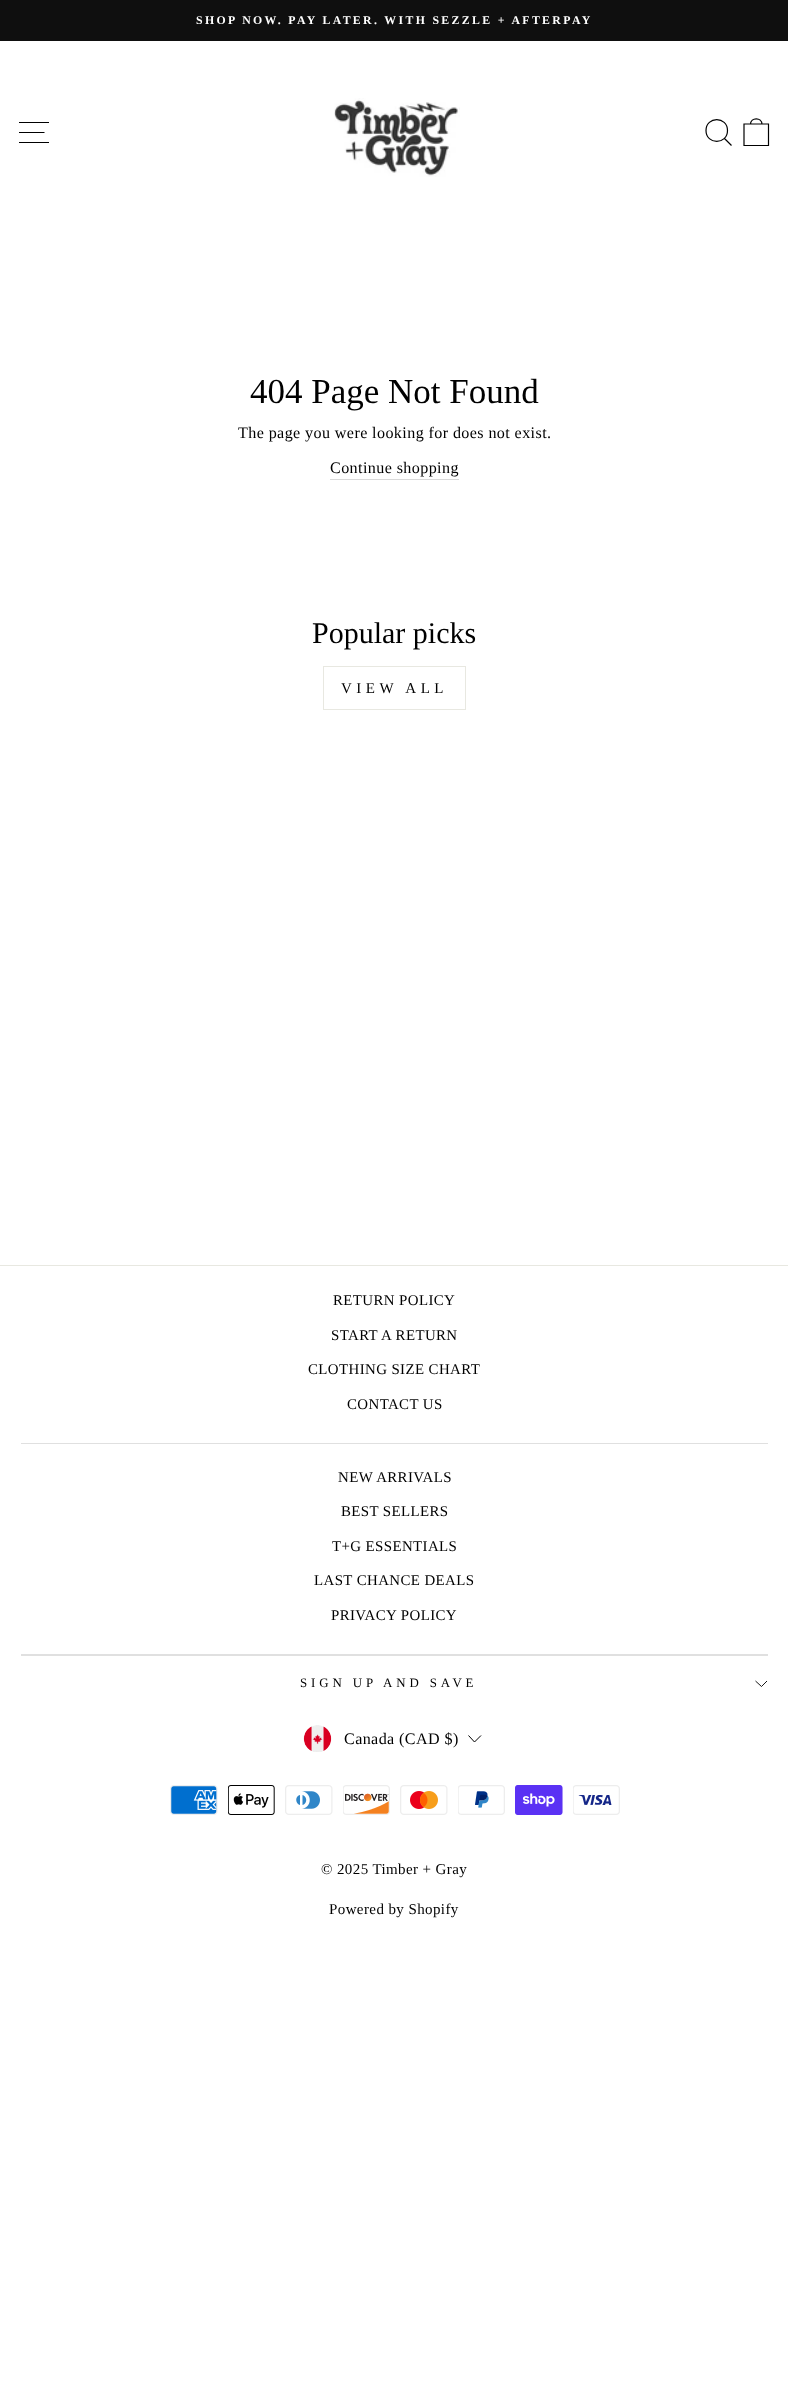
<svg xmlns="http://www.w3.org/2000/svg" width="788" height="2388">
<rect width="100%" height="100%" fill="#fff"/>
<rect width="788" height="41" fill="#0f0f0f"/>
<text x="196" y="24" style="font-family:Liberation Serif;font-size:11.8px;font-weight:bold;letter-spacing:2.35px;fill:#fff">SHOP NOW. PAY LATER. WITH SEZZLE + AFTERPAY</text>
<rect y="41" width="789" height="183" fill="#00000033" filter="blur(0.5px)"/>
<rect y="41" width="788" height="183" fill="#fff"/>
<path d="M19 122.5h30m-30 10h25.5m-25.5 10h30" fill="none" stroke="#000" stroke-width="1.2"/>
<image x="334" y="98" width="126" height="79" href="media/1.png"/>
<path d="M727.5 130.5c0 14.5-21.5 14.5-21.5 0c0-14.5 21.5-14.5 21.5 0zm4 15l-7-7" fill="none" stroke="#000" stroke-width="1.2"/>
<path d="M744 124h24.5v21.5h-24.5zm6.5 .5c0-7.5 11.5-7.5 11.5 0" fill="none" stroke="#000" stroke-width="1.2"/>
<text x="250" y="403" style="font-family:Liberation Serif;font-size:35px;fill:#000">404 Page Not Found</text>
<text x="238" y="438" style="font-family:Liberation Serif;font-size:16.1px;letter-spacing:0.4px;fill:#000">The page you were looking for does not exist.</text>
<rect x="330" y="479" width="129" height="1" fill="#d9d9d9"/>
<text x="330" y="473" style="font-family:Liberation Serif;font-size:16.1px;letter-spacing:0.4px;fill:#000">Continue shopping</text>
<text x="312" y="643" style="font-family:Liberation Serif;font-size:30px;fill:#000">Popular picks</text>
<rect x="323.5" y="666.5" width="142" height="43" fill="none" stroke="#e8e8e1"/>
<text x="341" y="693" style="font-family:Liberation Serif;font-size:15px;letter-spacing:4.5px;fill:#000">VIEW ALL</text>
<rect y="1265" width="788" height="1" fill="#e8e8e1"/>
<text x="333" y="1305" style="font-family:Liberation Serif;font-size:14.9px;letter-spacing:0.4px;fill:#000">RETURN POLICY</text>
<text x="331" y="1340" style="font-family:Liberation Serif;font-size:14.9px;letter-spacing:0.4px;fill:#000">START A RETURN</text>
<text x="308" y="1374" style="font-family:Liberation Serif;font-size:14.9px;letter-spacing:0.4px;fill:#000">CLOTHING SIZE CHART</text>
<text x="347" y="1409" style="font-family:Liberation Serif;font-size:14.9px;letter-spacing:0.4px;fill:#000">CONTACT US</text>
<rect x="21" y="1443" width="747" height="1" fill="#e0e0e0"/>
<text x="338" y="1482" style="font-family:Liberation Serif;font-size:14.9px;letter-spacing:0.4px;fill:#000">NEW ARRIVALS</text>
<text x="341" y="1516" style="font-family:Liberation Serif;font-size:14.9px;letter-spacing:0.4px;fill:#000">BEST SELLERS</text>
<text x="332" y="1551" style="font-family:Liberation Serif;font-size:14.9px;letter-spacing:0.4px;fill:#000">T+G ESSENTIALS</text>
<text x="314" y="1585" style="font-family:Liberation Serif;font-size:14.9px;letter-spacing:0.4px;fill:#000">LAST CHANCE DEALS</text>
<text x="331" y="1620" style="font-family:Liberation Serif;font-size:14.9px;letter-spacing:0.4px;fill:#000">PRIVACY POLICY</text>
<rect x="21" y="1654" width="747" height="2" fill="#e0e0e0"/>
<text x="300" y="1687" style="font-family:Liberation Serif;font-size:12.9px;letter-spacing:3.9px;fill:#000">SIGN UP AND SAVE</text>
<path d="M755.5 1681l6 5.5l5.5-5.5" fill="none" stroke="#000" stroke-width="0.9"/>
<image x="303" y="1725" width="29" height="27" href="media/2.png"/>
<text x="344" y="1744" style="font-family:Liberation Serif;font-size:16.1px;letter-spacing:0.4px;fill:#000">Canada (CAD $)</text>
<path d="M468.5 1735.5l6 6.5l6.5-6.5" fill="none" stroke="#000"/>
<image x="170" y="1785" width="48" height="30" href="media/3.png"/>
<image x="228" y="1785" width="47" height="30" href="media/4.png"/>
<image x="285" y="1785" width="48" height="30" href="media/5.png"/>
<image x="343" y="1785" width="47" height="30" href="media/6.png"/>
<image x="400" y="1785" width="48" height="30" href="media/7.png"/>
<image x="458" y="1785" width="47" height="30" href="media/8.png"/>
<image x="515" y="1785" width="48" height="30" href="media/9.png"/>
<image x="573" y="1785" width="47" height="30" href="media/10.png"/>
<text x="321" y="1874" style="font-family:Liberation Serif;font-size:15px;letter-spacing:0.4px;fill:#000">© 2025 Timber + Gray</text>
<text x="329" y="1914" style="font-family:Liberation Serif;font-size:15px;letter-spacing:0.4px;fill:#000">Powered by Shopify</text>
</svg>
